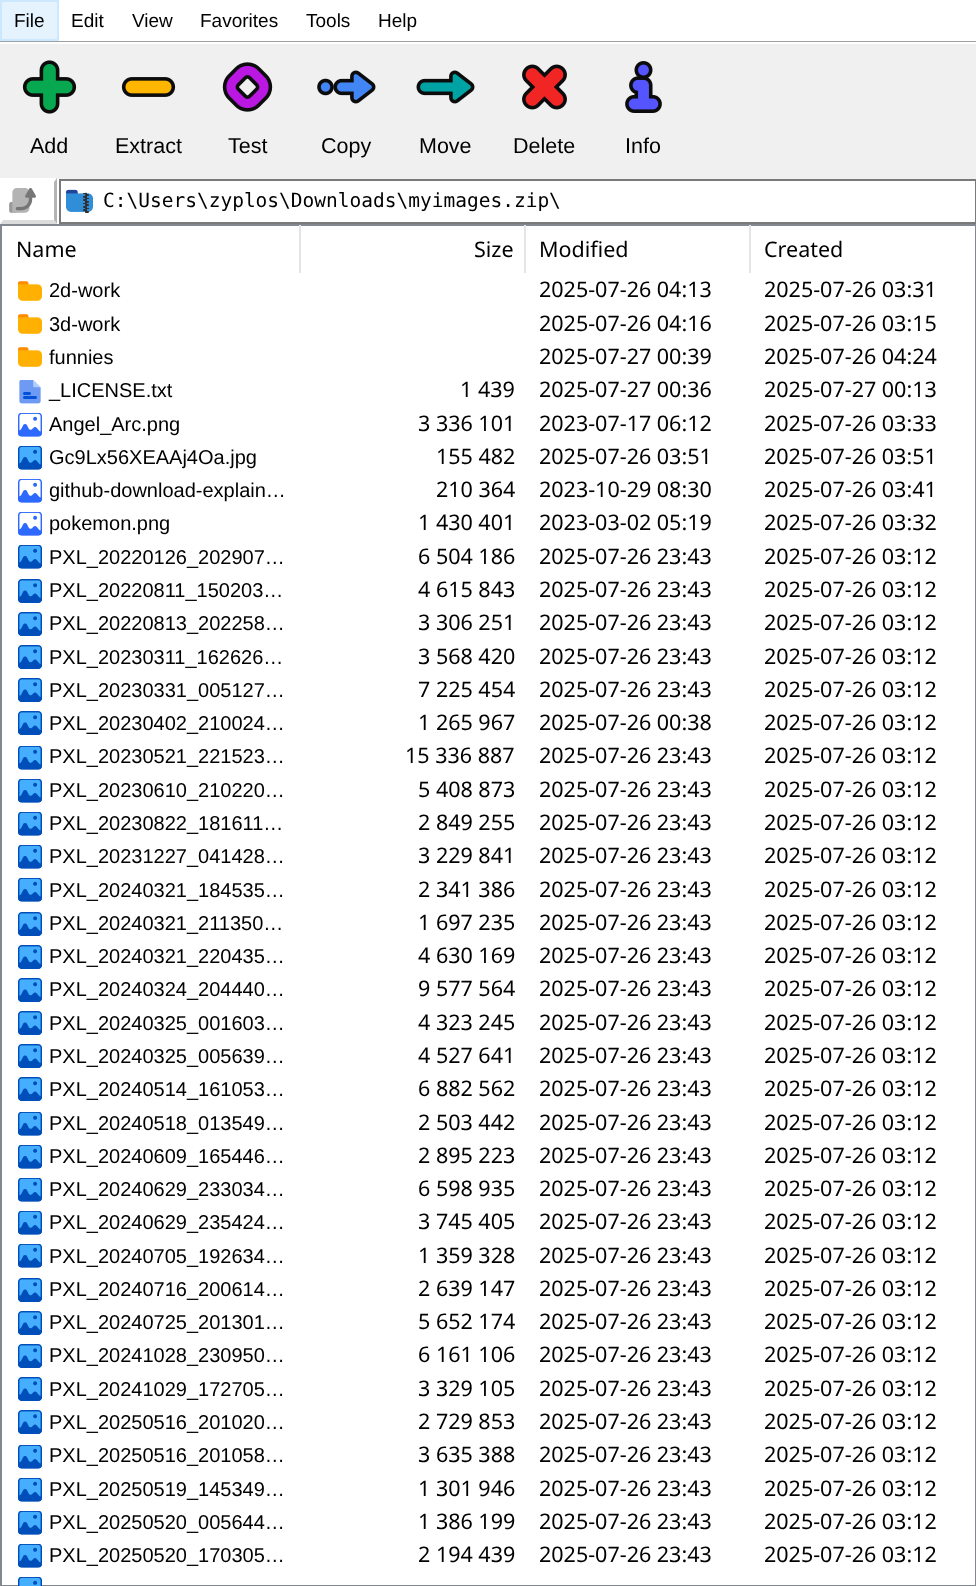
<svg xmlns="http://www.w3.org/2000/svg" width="976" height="1586">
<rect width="100%" height="100%" fill="#fff"/>
<rect x="1" y="1" width="57" height="39" fill="#e5f3ff" stroke="#cce8ff" stroke-width="2"/>
<text x="14" y="27" style="font-family:Liberation Sans;font-size:19px;fill:#000">File</text>
<text x="71" y="27" style="font-family:Liberation Sans;font-size:19px;fill:#000">Edit</text>
<text x="132" y="27" style="font-family:Liberation Sans;font-size:19px;fill:#000">View</text>
<text x="200" y="27" style="font-family:Liberation Sans;font-size:19px;fill:#000">Favorites</text>
<text x="306" y="27" style="font-family:Liberation Sans;font-size:19px;fill:#000">Tools</text>
<text x="378" y="27" style="font-family:Liberation Sans;font-size:19px;fill:#000">Help</text>
<rect y="44" width="976" height="135" fill="#f0f0f0"/>
<rect y="41" width="976" height="1" fill="#a0a0a0"/>
<image x="22" y="60" width="55" height="54" href="media/1.png"/>
<text x="30" y="153" style="font-family:Liberation Sans;font-size:21.5px;fill:#000">Add</text>
<image x="121" y="77" width="55" height="20" href="media/2.png"/>
<text x="115" y="153" style="font-family:Liberation Sans;font-size:21.5px;fill:#000">Extract</text>
<image x="222" y="62" width="51" height="50" href="media/3.png"/>
<text x="228" y="153" style="font-family:Liberation Sans;font-size:21.5px;fill:#000">Test</text>
<image x="317" y="70" width="59" height="34" href="media/4.png"/>
<text x="321" y="153" style="font-family:Liberation Sans;font-size:21.5px;fill:#000">Copy</text>
<image x="416" y="70" width="59" height="34" href="media/5.png"/>
<text x="419" y="153" style="font-family:Liberation Sans;font-size:21.5px;fill:#000">Move</text>
<image x="522" y="64" width="45" height="46" href="media/6.png"/>
<text x="513" y="153" style="font-family:Liberation Sans;font-size:21.5px;fill:#000">Delete</text>
<image x="625" y="61" width="37" height="52" href="media/7.png"/>
<text x="625" y="153" style="font-family:Liberation Sans;font-size:21.5px;fill:#000">Info</text>
<path d="M0 178h57l-3 4h-51z" fill="#fff"/>
<path d="M57 178v46l-3-4v-38z" fill="#b4b4b4"/>
<path d="M57 224h-57l3-4h51z" fill="#dcdcdc"/>
<path d="M0 224v-46l3 4v38z" fill="#fff"/>
<image x="9" y="188" width="27" height="25" href="media/8.png"/>
<rect x="60" y="180" width="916" height="43" fill="none" stroke="#7a7a7a" stroke-width="2"/>
<image x="66" y="189" width="27" height="24" href="media/9.png"/>
<text x="103" y="207" style="font-family:DejaVu Sans Mono;font-size:19.5px;fill:#000">C:\Users\zyplos\Downloads\myimages.zip\</text>
<rect x="1" y="225" width="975" height="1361" fill="none" stroke="#828790" stroke-width="2"/>
<rect x="299" y="225" width="2" height="48" fill="#e5e5e5"/>
<text x="16" y="257" style="font-family:Noto Sans;font-size:21.5px;fill:#000">Name</text>
<rect x="524" y="225" width="2" height="48" fill="#e5e5e5"/>
<text x="474" y="257" style="font-family:Noto Sans;font-size:21.5px;fill:#000">Size</text>
<rect x="749" y="225" width="2" height="48" fill="#e5e5e5"/>
<text x="539" y="257" style="font-family:Noto Sans;font-size:21.5px;fill:#000">Modified</text>
<text x="764" y="257" style="font-family:Noto Sans;font-size:21.5px;fill:#000">Created</text>
<image x="18" y="281" width="24" height="20" href="media/10.png"/>
<text x="49" y="297" style="font-family:Liberation Sans;font-size:20px;fill:#000">2d-work</text>
<text x="539" y="297" style="font-family:Noto Sans;font-size:21.5px;fill:#000">2025-07-26 04:13</text>
<text x="764" y="297" style="font-family:Noto Sans;font-size:21.5px;fill:#000">2025-07-26 03:31</text>
<image x="18" y="314" width="24" height="20" href="media/10.png"/>
<text x="49" y="331" style="font-family:Liberation Sans;font-size:20px;fill:#000">3d-work</text>
<text x="539" y="331" style="font-family:Noto Sans;font-size:21.5px;fill:#000">2025-07-26 04:16</text>
<text x="764" y="331" style="font-family:Noto Sans;font-size:21.5px;fill:#000">2025-07-26 03:15</text>
<image x="18" y="347" width="24" height="20" href="media/10.png"/>
<text x="49" y="364" style="font-family:Liberation Sans;font-size:20px;fill:#000">funnies</text>
<text x="539" y="364" style="font-family:Noto Sans;font-size:21.5px;fill:#000">2025-07-27 00:39</text>
<text x="764" y="364" style="font-family:Noto Sans;font-size:21.5px;fill:#000">2025-07-26 04:24</text>
<image x="19" y="380" width="22" height="24" href="media/11.png"/>
<text x="49" y="397" style="font-family:Liberation Sans;font-size:20px;fill:#000">_LICENSE.txt</text>
<text x="460" y="397" style="font-family:Noto Sans;font-size:21.5px;fill:#000">1 439</text>
<text x="539" y="397" style="font-family:Noto Sans;font-size:21.5px;fill:#000">2025-07-27 00:36</text>
<text x="764" y="397" style="font-family:Noto Sans;font-size:21.5px;fill:#000">2025-07-27 00:13</text>
<image x="18" y="413" width="24" height="24" href="media/12.png"/>
<text x="49" y="431" style="font-family:Liberation Sans;font-size:20px;fill:#000">Angel_Arc.png</text>
<text x="418" y="431" style="font-family:Noto Sans;font-size:21.5px;fill:#000">3 336 101</text>
<text x="539" y="431" style="font-family:Noto Sans;font-size:21.5px;fill:#000">2023-07-17 06:12</text>
<text x="764" y="431" style="font-family:Noto Sans;font-size:21.5px;fill:#000">2025-07-26 03:33</text>
<image x="18" y="446" width="24" height="24" href="media/13.png"/>
<text x="49" y="464" style="font-family:Liberation Sans;font-size:20px;fill:#000">Gc9Lx56XEAAj4Oa.jpg</text>
<text x="436" y="464" style="font-family:Noto Sans;font-size:21.5px;fill:#000">155 482</text>
<text x="539" y="464" style="font-family:Noto Sans;font-size:21.5px;fill:#000">2025-07-26 03:51</text>
<text x="764" y="464" style="font-family:Noto Sans;font-size:21.5px;fill:#000">2025-07-26 03:51</text>
<image x="18" y="479" width="24" height="24" href="media/12.png"/>
<text x="49" y="497" style="font-family:Liberation Sans;font-size:20px;fill:#000">github-download-explain…</text>
<text x="436" y="497" style="font-family:Noto Sans;font-size:21.5px;fill:#000">210 364</text>
<text x="539" y="497" style="font-family:Noto Sans;font-size:21.5px;fill:#000">2023-10-29 08:30</text>
<text x="764" y="497" style="font-family:Noto Sans;font-size:21.5px;fill:#000">2025-07-26 03:41</text>
<image x="18" y="512" width="24" height="24" href="media/12.png"/>
<text x="49" y="530" style="font-family:Liberation Sans;font-size:20px;fill:#000">pokemon.png</text>
<text x="418" y="530" style="font-family:Noto Sans;font-size:21.5px;fill:#000">1 430 401</text>
<text x="539" y="530" style="font-family:Noto Sans;font-size:21.5px;fill:#000">2023-03-02 05:19</text>
<text x="764" y="530" style="font-family:Noto Sans;font-size:21.5px;fill:#000">2025-07-26 03:32</text>
<image x="18" y="545" width="24" height="24" href="media/13.png"/>
<text x="49" y="564" style="font-family:Liberation Sans;font-size:20px;fill:#000">PXL_20220126_202907…</text>
<text x="418" y="564" style="font-family:Noto Sans;font-size:21.5px;fill:#000">6 504 186</text>
<text x="539" y="564" style="font-family:Noto Sans;font-size:21.5px;fill:#000">2025-07-26 23:43</text>
<text x="764" y="564" style="font-family:Noto Sans;font-size:21.5px;fill:#000">2025-07-26 03:12</text>
<image x="18" y="579" width="24" height="24" href="media/14.png"/>
<text x="49" y="597" style="font-family:Liberation Sans;font-size:20px;fill:#000">PXL_20220811_150203…</text>
<text x="418" y="597" style="font-family:Noto Sans;font-size:21.5px;fill:#000">4 615 843</text>
<text x="539" y="597" style="font-family:Noto Sans;font-size:21.5px;fill:#000">2025-07-26 23:43</text>
<text x="764" y="597" style="font-family:Noto Sans;font-size:21.5px;fill:#000">2025-07-26 03:12</text>
<image x="18" y="612" width="24" height="24" href="media/14.png"/>
<text x="49" y="630" style="font-family:Liberation Sans;font-size:20px;fill:#000">PXL_20220813_202258…</text>
<text x="418" y="630" style="font-family:Noto Sans;font-size:21.5px;fill:#000">3 306 251</text>
<text x="539" y="630" style="font-family:Noto Sans;font-size:21.5px;fill:#000">2025-07-26 23:43</text>
<text x="764" y="630" style="font-family:Noto Sans;font-size:21.5px;fill:#000">2025-07-26 03:12</text>
<image x="18" y="645" width="24" height="24" href="media/14.png"/>
<text x="49" y="664" style="font-family:Liberation Sans;font-size:20px;fill:#000">PXL_20230311_162626…</text>
<text x="418" y="664" style="font-family:Noto Sans;font-size:21.5px;fill:#000">3 568 420</text>
<text x="539" y="664" style="font-family:Noto Sans;font-size:21.5px;fill:#000">2025-07-26 23:43</text>
<text x="764" y="664" style="font-family:Noto Sans;font-size:21.5px;fill:#000">2025-07-26 03:12</text>
<image x="18" y="678" width="24" height="24" href="media/14.png"/>
<text x="49" y="697" style="font-family:Liberation Sans;font-size:20px;fill:#000">PXL_20230331_005127…</text>
<text x="418" y="697" style="font-family:Noto Sans;font-size:21.5px;fill:#000">7 225 454</text>
<text x="539" y="697" style="font-family:Noto Sans;font-size:21.5px;fill:#000">2025-07-26 23:43</text>
<text x="764" y="697" style="font-family:Noto Sans;font-size:21.5px;fill:#000">2025-07-26 03:12</text>
<image x="18" y="711" width="24" height="24" href="media/14.png"/>
<text x="49" y="730" style="font-family:Liberation Sans;font-size:20px;fill:#000">PXL_20230402_210024…</text>
<text x="418" y="730" style="font-family:Noto Sans;font-size:21.5px;fill:#000">1 265 967</text>
<text x="539" y="730" style="font-family:Noto Sans;font-size:21.5px;fill:#000">2025-07-26 00:38</text>
<text x="764" y="730" style="font-family:Noto Sans;font-size:21.5px;fill:#000">2025-07-26 03:12</text>
<image x="18" y="746" width="24" height="24" href="media/13.png"/>
<text x="49" y="763" style="font-family:Liberation Sans;font-size:20px;fill:#000">PXL_20230521_221523…</text>
<text x="405" y="763" style="font-family:Noto Sans;font-size:21.5px;fill:#000">15 336 887</text>
<text x="539" y="763" style="font-family:Noto Sans;font-size:21.5px;fill:#000">2025-07-26 23:43</text>
<text x="764" y="763" style="font-family:Noto Sans;font-size:21.5px;fill:#000">2025-07-26 03:12</text>
<image x="18" y="779" width="24" height="24" href="media/13.png"/>
<text x="49" y="797" style="font-family:Liberation Sans;font-size:20px;fill:#000">PXL_20230610_210220…</text>
<text x="418" y="797" style="font-family:Noto Sans;font-size:21.5px;fill:#000">5 408 873</text>
<text x="539" y="797" style="font-family:Noto Sans;font-size:21.5px;fill:#000">2025-07-26 23:43</text>
<text x="764" y="797" style="font-family:Noto Sans;font-size:21.5px;fill:#000">2025-07-26 03:12</text>
<image x="18" y="812" width="24" height="24" href="media/13.png"/>
<text x="49" y="830" style="font-family:Liberation Sans;font-size:20px;fill:#000">PXL_20230822_181611…</text>
<text x="418" y="830" style="font-family:Noto Sans;font-size:21.5px;fill:#000">2 849 255</text>
<text x="539" y="830" style="font-family:Noto Sans;font-size:21.5px;fill:#000">2025-07-26 23:43</text>
<text x="764" y="830" style="font-family:Noto Sans;font-size:21.5px;fill:#000">2025-07-26 03:12</text>
<image x="18" y="845" width="24" height="24" href="media/13.png"/>
<text x="49" y="863" style="font-family:Liberation Sans;font-size:20px;fill:#000">PXL_20231227_041428…</text>
<text x="418" y="863" style="font-family:Noto Sans;font-size:21.5px;fill:#000">3 229 841</text>
<text x="539" y="863" style="font-family:Noto Sans;font-size:21.5px;fill:#000">2025-07-26 23:43</text>
<text x="764" y="863" style="font-family:Noto Sans;font-size:21.5px;fill:#000">2025-07-26 03:12</text>
<image x="18" y="878" width="24" height="24" href="media/13.png"/>
<text x="49" y="897" style="font-family:Liberation Sans;font-size:20px;fill:#000">PXL_20240321_184535…</text>
<text x="418" y="897" style="font-family:Noto Sans;font-size:21.5px;fill:#000">2 341 386</text>
<text x="539" y="897" style="font-family:Noto Sans;font-size:21.5px;fill:#000">2025-07-26 23:43</text>
<text x="764" y="897" style="font-family:Noto Sans;font-size:21.5px;fill:#000">2025-07-26 03:12</text>
<image x="18" y="912" width="24" height="24" href="media/14.png"/>
<text x="49" y="930" style="font-family:Liberation Sans;font-size:20px;fill:#000">PXL_20240321_211350…</text>
<text x="418" y="930" style="font-family:Noto Sans;font-size:21.5px;fill:#000">1 697 235</text>
<text x="539" y="930" style="font-family:Noto Sans;font-size:21.5px;fill:#000">2025-07-26 23:43</text>
<text x="764" y="930" style="font-family:Noto Sans;font-size:21.5px;fill:#000">2025-07-26 03:12</text>
<image x="18" y="945" width="24" height="24" href="media/14.png"/>
<text x="49" y="963" style="font-family:Liberation Sans;font-size:20px;fill:#000">PXL_20240321_220435…</text>
<text x="418" y="963" style="font-family:Noto Sans;font-size:21.5px;fill:#000">4 630 169</text>
<text x="539" y="963" style="font-family:Noto Sans;font-size:21.5px;fill:#000">2025-07-26 23:43</text>
<text x="764" y="963" style="font-family:Noto Sans;font-size:21.5px;fill:#000">2025-07-26 03:12</text>
<image x="18" y="978" width="24" height="24" href="media/14.png"/>
<text x="49" y="996" style="font-family:Liberation Sans;font-size:20px;fill:#000">PXL_20240324_204440…</text>
<text x="418" y="996" style="font-family:Noto Sans;font-size:21.5px;fill:#000">9 577 564</text>
<text x="539" y="996" style="font-family:Noto Sans;font-size:21.5px;fill:#000">2025-07-26 23:43</text>
<text x="764" y="996" style="font-family:Noto Sans;font-size:21.5px;fill:#000">2025-07-26 03:12</text>
<image x="18" y="1011" width="24" height="24" href="media/14.png"/>
<text x="49" y="1030" style="font-family:Liberation Sans;font-size:20px;fill:#000">PXL_20240325_001603…</text>
<text x="418" y="1030" style="font-family:Noto Sans;font-size:21.5px;fill:#000">4 323 245</text>
<text x="539" y="1030" style="font-family:Noto Sans;font-size:21.5px;fill:#000">2025-07-26 23:43</text>
<text x="764" y="1030" style="font-family:Noto Sans;font-size:21.5px;fill:#000">2025-07-26 03:12</text>
<image x="18" y="1044" width="24" height="24" href="media/14.png"/>
<text x="49" y="1063" style="font-family:Liberation Sans;font-size:20px;fill:#000">PXL_20240325_005639…</text>
<text x="418" y="1063" style="font-family:Noto Sans;font-size:21.5px;fill:#000">4 527 641</text>
<text x="539" y="1063" style="font-family:Noto Sans;font-size:21.5px;fill:#000">2025-07-26 23:43</text>
<text x="764" y="1063" style="font-family:Noto Sans;font-size:21.5px;fill:#000">2025-07-26 03:12</text>
<image x="18" y="1077" width="24" height="24" href="media/14.png"/>
<text x="49" y="1096" style="font-family:Liberation Sans;font-size:20px;fill:#000">PXL_20240514_161053…</text>
<text x="418" y="1096" style="font-family:Noto Sans;font-size:21.5px;fill:#000">6 882 562</text>
<text x="539" y="1096" style="font-family:Noto Sans;font-size:21.5px;fill:#000">2025-07-26 23:43</text>
<text x="764" y="1096" style="font-family:Noto Sans;font-size:21.5px;fill:#000">2025-07-26 03:12</text>
<image x="18" y="1112" width="24" height="24" href="media/13.png"/>
<text x="49" y="1130" style="font-family:Liberation Sans;font-size:20px;fill:#000">PXL_20240518_013549…</text>
<text x="418" y="1130" style="font-family:Noto Sans;font-size:21.5px;fill:#000">2 503 442</text>
<text x="539" y="1130" style="font-family:Noto Sans;font-size:21.5px;fill:#000">2025-07-26 23:43</text>
<text x="764" y="1130" style="font-family:Noto Sans;font-size:21.5px;fill:#000">2025-07-26 03:12</text>
<image x="18" y="1145" width="24" height="24" href="media/13.png"/>
<text x="49" y="1163" style="font-family:Liberation Sans;font-size:20px;fill:#000">PXL_20240609_165446…</text>
<text x="418" y="1163" style="font-family:Noto Sans;font-size:21.5px;fill:#000">2 895 223</text>
<text x="539" y="1163" style="font-family:Noto Sans;font-size:21.5px;fill:#000">2025-07-26 23:43</text>
<text x="764" y="1163" style="font-family:Noto Sans;font-size:21.5px;fill:#000">2025-07-26 03:12</text>
<image x="18" y="1178" width="24" height="24" href="media/13.png"/>
<text x="49" y="1196" style="font-family:Liberation Sans;font-size:20px;fill:#000">PXL_20240629_233034…</text>
<text x="418" y="1196" style="font-family:Noto Sans;font-size:21.5px;fill:#000">6 598 935</text>
<text x="539" y="1196" style="font-family:Noto Sans;font-size:21.5px;fill:#000">2025-07-26 23:43</text>
<text x="764" y="1196" style="font-family:Noto Sans;font-size:21.5px;fill:#000">2025-07-26 03:12</text>
<image x="18" y="1211" width="24" height="24" href="media/13.png"/>
<text x="49" y="1229" style="font-family:Liberation Sans;font-size:20px;fill:#000">PXL_20240629_235424…</text>
<text x="418" y="1229" style="font-family:Noto Sans;font-size:21.5px;fill:#000">3 745 405</text>
<text x="539" y="1229" style="font-family:Noto Sans;font-size:21.5px;fill:#000">2025-07-26 23:43</text>
<text x="764" y="1229" style="font-family:Noto Sans;font-size:21.5px;fill:#000">2025-07-26 03:12</text>
<image x="18" y="1244" width="24" height="24" href="media/13.png"/>
<text x="49" y="1263" style="font-family:Liberation Sans;font-size:20px;fill:#000">PXL_20240705_192634…</text>
<text x="418" y="1263" style="font-family:Noto Sans;font-size:21.5px;fill:#000">1 359 328</text>
<text x="539" y="1263" style="font-family:Noto Sans;font-size:21.5px;fill:#000">2025-07-26 23:43</text>
<text x="764" y="1263" style="font-family:Noto Sans;font-size:21.5px;fill:#000">2025-07-26 03:12</text>
<image x="18" y="1278" width="24" height="24" href="media/14.png"/>
<text x="49" y="1296" style="font-family:Liberation Sans;font-size:20px;fill:#000">PXL_20240716_200614…</text>
<text x="418" y="1296" style="font-family:Noto Sans;font-size:21.5px;fill:#000">2 639 147</text>
<text x="539" y="1296" style="font-family:Noto Sans;font-size:21.5px;fill:#000">2025-07-26 23:43</text>
<text x="764" y="1296" style="font-family:Noto Sans;font-size:21.5px;fill:#000">2025-07-26 03:12</text>
<image x="18" y="1311" width="24" height="24" href="media/14.png"/>
<text x="49" y="1329" style="font-family:Liberation Sans;font-size:20px;fill:#000">PXL_20240725_201301…</text>
<text x="418" y="1329" style="font-family:Noto Sans;font-size:21.5px;fill:#000">5 652 174</text>
<text x="539" y="1329" style="font-family:Noto Sans;font-size:21.5px;fill:#000">2025-07-26 23:43</text>
<text x="764" y="1329" style="font-family:Noto Sans;font-size:21.5px;fill:#000">2025-07-26 03:12</text>
<image x="18" y="1344" width="24" height="24" href="media/14.png"/>
<text x="49" y="1362" style="font-family:Liberation Sans;font-size:20px;fill:#000">PXL_20241028_230950…</text>
<text x="418" y="1362" style="font-family:Noto Sans;font-size:21.5px;fill:#000">6 161 106</text>
<text x="539" y="1362" style="font-family:Noto Sans;font-size:21.5px;fill:#000">2025-07-26 23:43</text>
<text x="764" y="1362" style="font-family:Noto Sans;font-size:21.5px;fill:#000">2025-07-26 03:12</text>
<image x="18" y="1377" width="24" height="24" href="media/14.png"/>
<text x="49" y="1396" style="font-family:Liberation Sans;font-size:20px;fill:#000">PXL_20241029_172705…</text>
<text x="418" y="1396" style="font-family:Noto Sans;font-size:21.5px;fill:#000">3 329 105</text>
<text x="539" y="1396" style="font-family:Noto Sans;font-size:21.5px;fill:#000">2025-07-26 23:43</text>
<text x="764" y="1396" style="font-family:Noto Sans;font-size:21.5px;fill:#000">2025-07-26 03:12</text>
<image x="18" y="1410" width="24" height="24" href="media/14.png"/>
<text x="49" y="1429" style="font-family:Liberation Sans;font-size:20px;fill:#000">PXL_20250516_201020…</text>
<text x="418" y="1429" style="font-family:Noto Sans;font-size:21.5px;fill:#000">2 729 853</text>
<text x="539" y="1429" style="font-family:Noto Sans;font-size:21.5px;fill:#000">2025-07-26 23:43</text>
<text x="764" y="1429" style="font-family:Noto Sans;font-size:21.5px;fill:#000">2025-07-26 03:12</text>
<image x="18" y="1445" width="24" height="24" href="media/13.png"/>
<text x="49" y="1462" style="font-family:Liberation Sans;font-size:20px;fill:#000">PXL_20250516_201058…</text>
<text x="418" y="1462" style="font-family:Noto Sans;font-size:21.5px;fill:#000">3 635 388</text>
<text x="539" y="1462" style="font-family:Noto Sans;font-size:21.5px;fill:#000">2025-07-26 23:43</text>
<text x="764" y="1462" style="font-family:Noto Sans;font-size:21.5px;fill:#000">2025-07-26 03:12</text>
<image x="18" y="1478" width="24" height="24" href="media/13.png"/>
<text x="49" y="1496" style="font-family:Liberation Sans;font-size:20px;fill:#000">PXL_20250519_145349…</text>
<text x="418" y="1496" style="font-family:Noto Sans;font-size:21.5px;fill:#000">1 301 946</text>
<text x="539" y="1496" style="font-family:Noto Sans;font-size:21.5px;fill:#000">2025-07-26 23:43</text>
<text x="764" y="1496" style="font-family:Noto Sans;font-size:21.5px;fill:#000">2025-07-26 03:12</text>
<image x="18" y="1511" width="24" height="24" href="media/13.png"/>
<text x="49" y="1529" style="font-family:Liberation Sans;font-size:20px;fill:#000">PXL_20250520_005644…</text>
<text x="418" y="1529" style="font-family:Noto Sans;font-size:21.5px;fill:#000">1 386 199</text>
<text x="539" y="1529" style="font-family:Noto Sans;font-size:21.5px;fill:#000">2025-07-26 23:43</text>
<text x="764" y="1529" style="font-family:Noto Sans;font-size:21.5px;fill:#000">2025-07-26 03:12</text>
<image x="18" y="1544" width="24" height="24" href="media/13.png"/>
<text x="49" y="1562" style="font-family:Liberation Sans;font-size:20px;fill:#000">PXL_20250520_170305…</text>
<text x="418" y="1562" style="font-family:Noto Sans;font-size:21.5px;fill:#000">2 194 439</text>
<text x="539" y="1562" style="font-family:Noto Sans;font-size:21.5px;fill:#000">2025-07-26 23:43</text>
<text x="764" y="1562" style="font-family:Noto Sans;font-size:21.5px;fill:#000">2025-07-26 03:12</text>
<image x="18" y="1577" width="24" height="9" href="media/15.png"/>
</svg>
